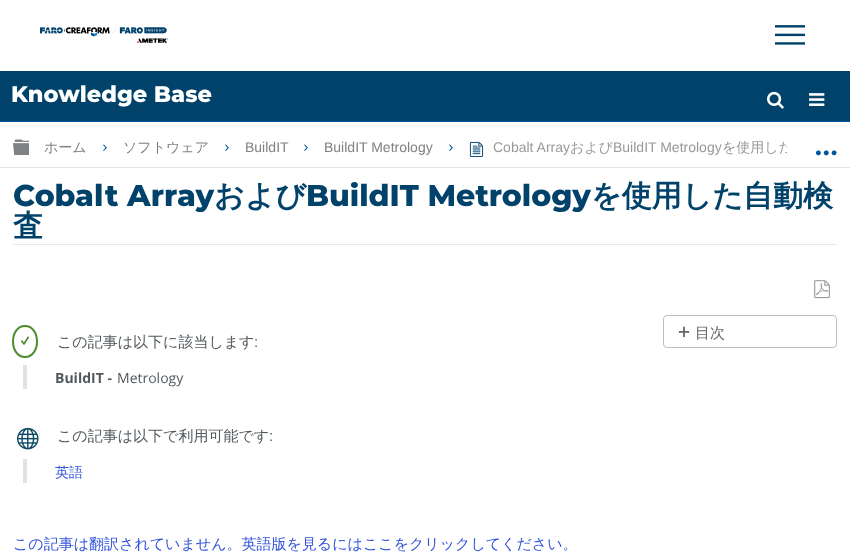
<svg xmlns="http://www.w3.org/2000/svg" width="850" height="557">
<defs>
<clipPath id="clip1"><rect x="37" y="133" width="750" height="30"/></clipPath>
</defs>
<rect width="100%" height="100%" fill="#fff"/>
<image x="40" y="27" width="128" height="16" href="media/1.png"/>
<image x="775" y="25" width="30" height="20" href="media/2.png"/>
<rect y="71" width="850" height="50" fill="#01426a"/>
<text x="11" y="102" style="font-family:Montserrat;font-size:22.5px;font-weight:800;fill:#fff">Knowledge Base</text>
<image x="767" y="91" width="17" height="18" href="media/3.png"/>
<image x="809" y="93" width="16" height="13" href="media/4.png"/>
<rect y="121" width="850" height="1" fill="#0055a0"/>
<rect y="167" width="850" height="1" fill="#e2e2e2"/>
<image x="13" y="139" width="16" height="16" href="media/5.png"/>
<text x="44" y="152" style="font-family:WenQuanYi Zen Hei;font-size:14px;font-weight:500;fill:#808184">ホーム</text>
<image x="103" y="144" width="4" height="7" href="media/6.png"/>
<text x="123" y="152" style="font-family:WenQuanYi Zen Hei;font-size:14px;font-weight:500;fill:#808184">ソフトウェア</text>
<image x="225" y="144" width="4" height="7" href="media/6.png"/>
<text x="245" y="152" style="font-family:Liberation Sans;font-size:14px;fill:#808184">BuildIT</text>
<image x="304" y="144" width="4" height="7" href="media/6.png"/>
<text x="324" y="152" style="font-family:Liberation Sans;font-size:14px;fill:#808184">BuildIT Metrology</text>
<image x="449" y="144" width="4" height="7" href="media/6.png"/>
<image x="469" y="141" width="15" height="16" href="media/7.png"/>
<text x="493" y="152" style="font-family:Liberation Sans;font-size:14px;fill:#999">Cobalt Array</text>
<text x="570" y="152" style="font-family:WenQuanYi Zen Hei;font-size:14px;font-weight:500;fill:#999">および</text>
<text x="613" y="152" style="font-family:Liberation Sans;font-size:14px;fill:#999">BuildIT Metrology</text>
<g clip-path="url(#clip1)">
<text x="722" y="152" style="font-family:WenQuanYi Zen Hei;font-size:14px;font-weight:500;fill:#999">を使用した</text>
</g>
<image x="815" y="150" width="22" height="6" href="media/8.png"/>
<rect x="13" y="244" width="824" height="1" fill="#e6e9ed"/>
<text x="13" y="206" style="font-family:Montserrat;font-size:30px;font-weight:800;fill:#01426a">Cobalt Array</text>
<text x="214" y="206" style="font-family:WenQuanYi Zen Hei;font-size:30px;font-weight:bold;fill:#01426a">および</text>
<text x="306" y="206" style="font-family:Montserrat;font-size:30px;font-weight:800;fill:#01426a">BuildIT Metrology</text>
<text x="591" y="206" style="font-family:WenQuanYi Zen Hei;font-size:30px;font-weight:bold;fill:#01426a">を使用した自動検</text>
<text x="13" y="236" style="font-family:WenQuanYi Zen Hei;font-size:30px;font-weight:bold;fill:#01426a">査</text>
<image x="814" y="280" width="16" height="19" href="media/9.png"/>
<rect x="23" y="365" width="4" height="24" fill="#e2e2e2"/>
<path d="M25 326c16 0 16 31 0 31c-16 0-16-31 0-31z" fill="none" stroke="#4c8c2b" stroke-width="2"/>
<image x="21" y="336" width="8" height="9" href="media/10.png"/>
<text x="57" y="347" style="font-family:WenQuanYi Zen Hei;font-size:15px;font-weight:500;fill:#52595d">この記事は以下に該当します</text>
<text x="254" y="347" style="font-family:Liberation Sans;font-size:15px;fill:#52595d">:</text>
<text x="55" y="383" style="font-family:Open Sans;font-size:14px;font-weight:bold;fill:#52595d">BuildIT -</text>
<text x="117" y="383" style="font-family:Open Sans;font-size:14px;fill:#52595d">Metrology</text>
<rect x="23" y="459" width="4" height="24" fill="#e2e2e2"/>
<image x="17" y="427" width="22" height="23" href="media/11.png"/>
<text x="57" y="441" style="font-family:WenQuanYi Zen Hei;font-size:15px;font-weight:500;fill:#52595d">この記事は以下で利用可能です</text>
<text x="269" y="441" style="font-family:Liberation Sans;font-size:15px;fill:#52595d">:</text>
<text x="55" y="477" style="font-family:WenQuanYi Zen Hei;font-size:14px;font-weight:500;fill:#3455db">英語</text>
<text x="13" y="549" style="font-family:WenQuanYi Zen Hei;font-size:15px;font-weight:500;fill:#3455db">この記事は翻訳されていません。英語版を見るにはここをクリックしてください。</text>
<rect x="663.5" y="315.5" width="173" height="32" rx="3.5" fill="none" stroke="#bfbdbd"/>
<image x="678" y="326" width="12" height="12" href="media/12.png"/>
<text x="695" y="338" style="font-family:WenQuanYi Zen Hei;font-size:15px;font-weight:500;fill:#666">目次</text>
</svg>
